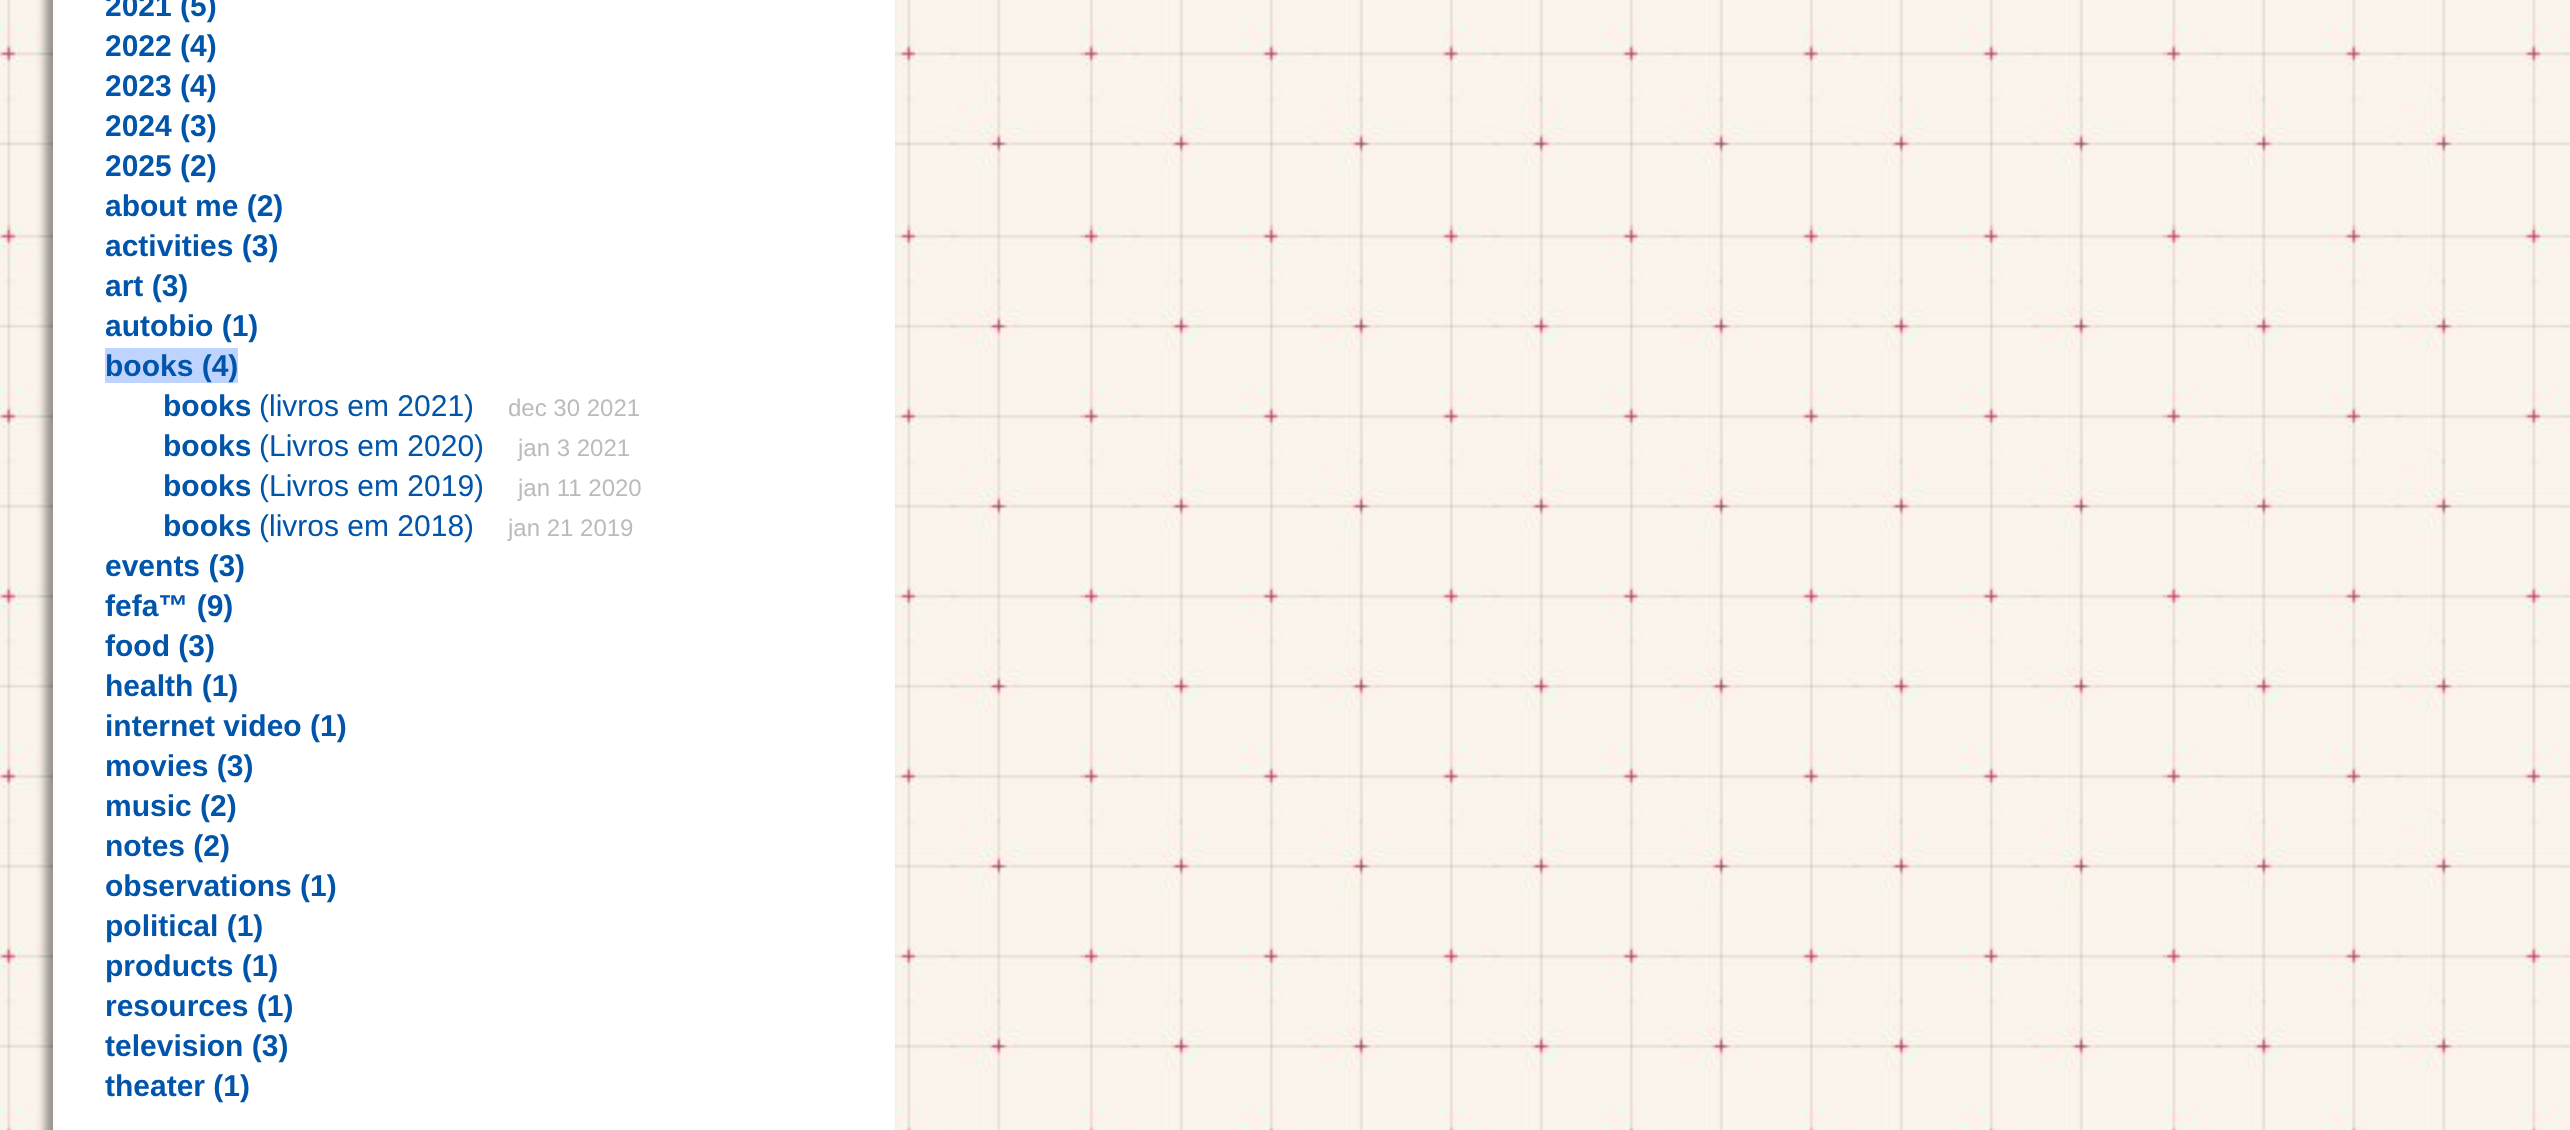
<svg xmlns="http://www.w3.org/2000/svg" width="2570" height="1130">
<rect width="100%" height="100%" fill="#fff"/>
<image x="0" y="0" width="2570" height="1130" href="media/1.png"/>
<rect x="45" y="-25" width="843" height="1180" rx="13" fill="#00000066" filter="blur(4px)"/>
<rect x="53" width="842" height="1130" fill="#fff"/>
<text x="105" y="16" style="font-family:Liberation Sans;font-size:30px;font-weight:bold;fill:#05a">2021 (5)</text>
<text x="105" y="56" style="font-family:Liberation Sans;font-size:30px;font-weight:bold;fill:#05a">2022 (4)</text>
<text x="105" y="96" style="font-family:Liberation Sans;font-size:30px;font-weight:bold;fill:#05a">2023 (4)</text>
<text x="105" y="136" style="font-family:Liberation Sans;font-size:30px;font-weight:bold;fill:#05a">2024 (3)</text>
<text x="105" y="176" style="font-family:Liberation Sans;font-size:30px;font-weight:bold;fill:#05a">2025 (2)</text>
<text x="105" y="216" style="font-family:Liberation Sans;font-size:30px;font-weight:bold;fill:#05a">about me (2)</text>
<text x="105" y="256" style="font-family:Liberation Sans;font-size:30px;font-weight:bold;fill:#05a">activities (3)</text>
<text x="105" y="296" style="font-family:Liberation Sans;font-size:30px;font-weight:bold;fill:#05a">art (3)</text>
<text x="105" y="336" style="font-family:Liberation Sans;font-size:30px;font-weight:bold;fill:#05a">autobio (1)</text>
<rect x="105" y="348" width="133" height="35" fill="#bed4ff"/>
<text x="105" y="376" style="font-family:Liberation Sans;font-size:30px;font-weight:bold;fill:#05a">books (4)</text>
<text x="163" y="416" style="font-family:Liberation Sans;font-size:30px;font-weight:bold;fill:#05a">books</text>
<text x="259" y="416" style="font-family:Liberation Sans;font-size:30px;fill:#05a">(livros em 2021)</text>
<text x="508" y="416" style="font-family:Liberation Sans;font-size:24px;fill:#bbb">dec 30 2021</text>
<text x="163" y="456" style="font-family:Liberation Sans;font-size:30px;font-weight:bold;fill:#05a">books</text>
<text x="259" y="456" style="font-family:Liberation Sans;font-size:30px;fill:#05a">(Livros em 2020)</text>
<text x="518" y="456" style="font-family:Liberation Sans;font-size:24px;fill:#bbb">jan 3 2021</text>
<text x="163" y="496" style="font-family:Liberation Sans;font-size:30px;font-weight:bold;fill:#05a">books</text>
<text x="259" y="496" style="font-family:Liberation Sans;font-size:30px;fill:#05a">(Livros em 2019)</text>
<text x="518" y="496" style="font-family:Liberation Sans;font-size:24px;fill:#bbb">jan 11 2020</text>
<text x="163" y="536" style="font-family:Liberation Sans;font-size:30px;font-weight:bold;fill:#05a">books</text>
<text x="259" y="536" style="font-family:Liberation Sans;font-size:30px;fill:#05a">(livros em 2018)</text>
<text x="508" y="536" style="font-family:Liberation Sans;font-size:24px;fill:#bbb">jan 21 2019</text>
<text x="105" y="576" style="font-family:Liberation Sans;font-size:30px;font-weight:bold;fill:#05a">events (3)</text>
<text x="105" y="616" style="font-family:Liberation Sans;font-size:30px;font-weight:bold;fill:#05a">fefa™ (9)</text>
<text x="105" y="656" style="font-family:Liberation Sans;font-size:30px;font-weight:bold;fill:#05a">food (3)</text>
<text x="105" y="696" style="font-family:Liberation Sans;font-size:30px;font-weight:bold;fill:#05a">health (1)</text>
<text x="105" y="736" style="font-family:Liberation Sans;font-size:30px;font-weight:bold;fill:#05a">internet video (1)</text>
<text x="105" y="776" style="font-family:Liberation Sans;font-size:30px;font-weight:bold;fill:#05a">movies (3)</text>
<text x="105" y="816" style="font-family:Liberation Sans;font-size:30px;font-weight:bold;fill:#05a">music (2)</text>
<text x="105" y="856" style="font-family:Liberation Sans;font-size:30px;font-weight:bold;fill:#05a">notes (2)</text>
<text x="105" y="896" style="font-family:Liberation Sans;font-size:30px;font-weight:bold;fill:#05a">observations (1)</text>
<text x="105" y="936" style="font-family:Liberation Sans;font-size:30px;font-weight:bold;fill:#05a">political (1)</text>
<text x="105" y="976" style="font-family:Liberation Sans;font-size:30px;font-weight:bold;fill:#05a">products (1)</text>
<text x="105" y="1016" style="font-family:Liberation Sans;font-size:30px;font-weight:bold;fill:#05a">resources (1)</text>
<text x="105" y="1056" style="font-family:Liberation Sans;font-size:30px;font-weight:bold;fill:#05a">television (3)</text>
<text x="105" y="1096" style="font-family:Liberation Sans;font-size:30px;font-weight:bold;fill:#05a">theater (1)</text>
</svg>
